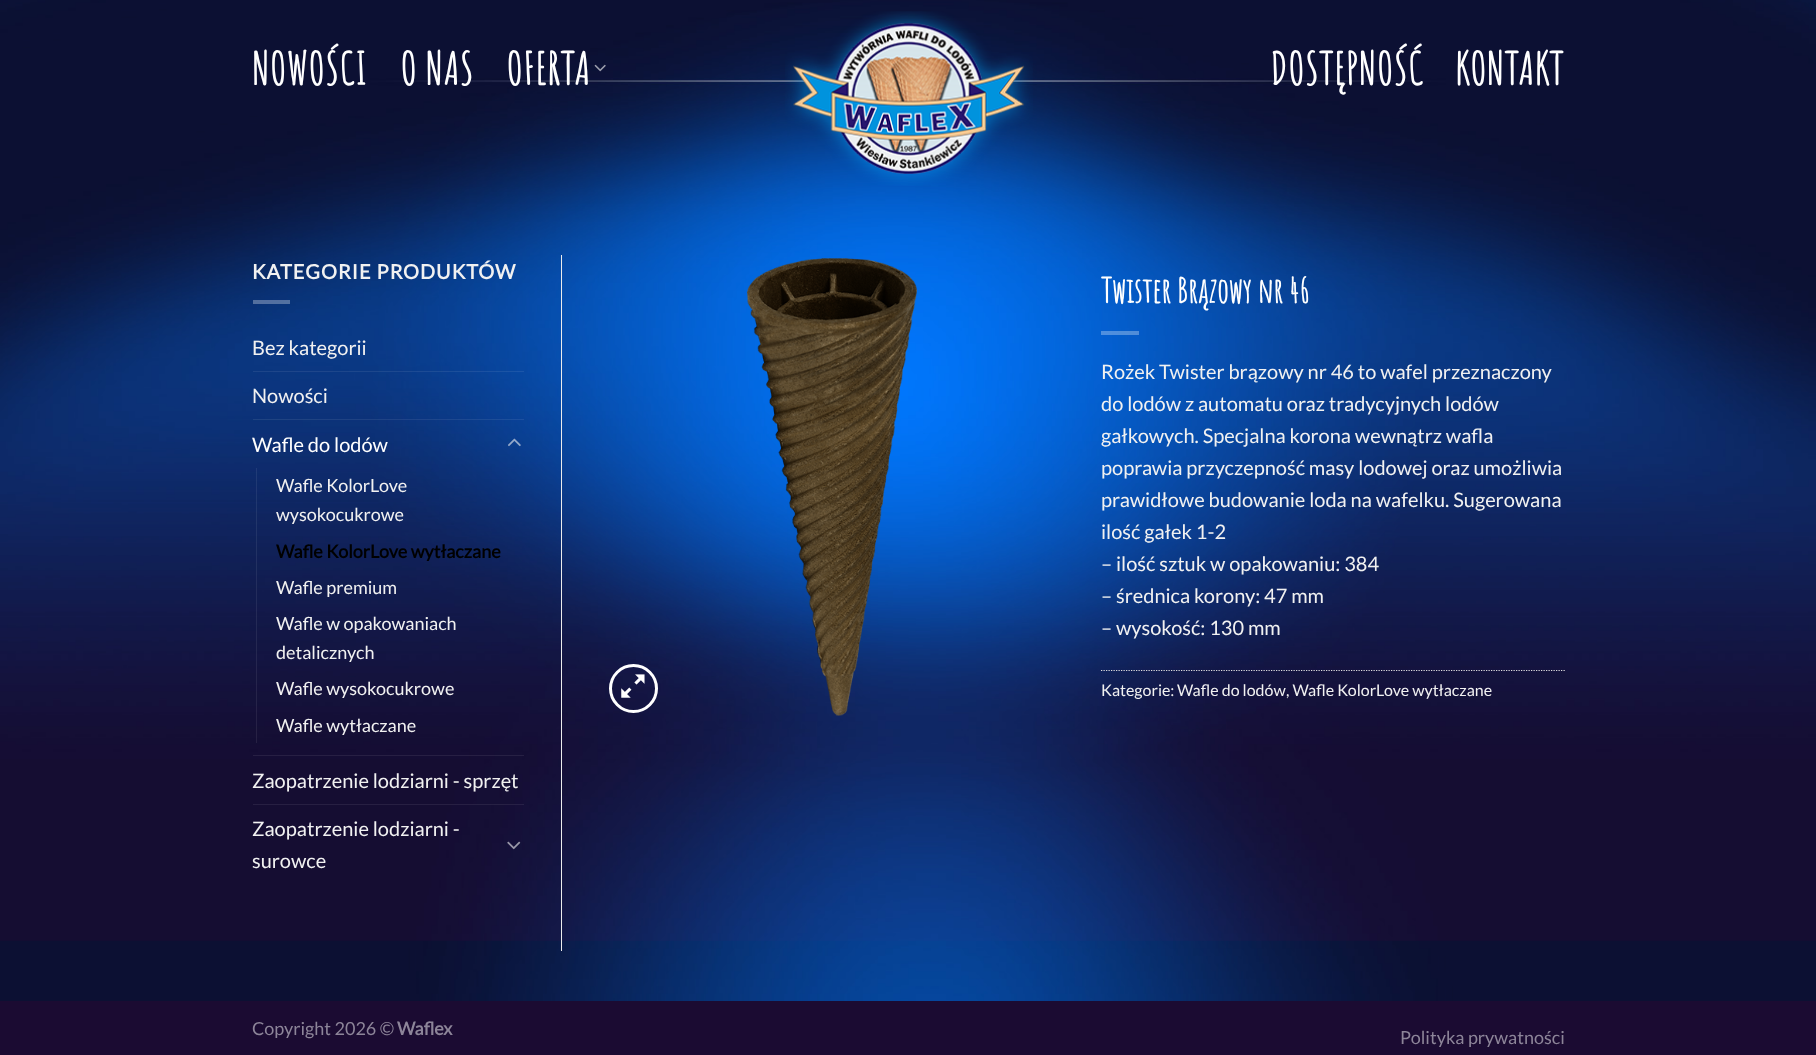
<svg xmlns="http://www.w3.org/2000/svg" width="1816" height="1055">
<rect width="100%" height="100%" fill="#fff"/>
<image x="0" y="0" width="1816" height="1001" href="media/1.png"/>
<text x="252" y="85" style="font-family:Amatic SC;font-size:44px;font-weight:bold;letter-spacing:0.9px;fill:#fff">NOWOŚCI</text>
<text x="400" y="85" style="font-family:Amatic SC;font-size:44px;font-weight:bold;letter-spacing:0.9px;fill:#fff">O NAS</text>
<text x="506" y="85" style="font-family:Amatic SC;font-size:44px;font-weight:bold;letter-spacing:0.9px;fill:#fff">OFERTA</text>
<image x="594" y="64" width="12" height="8" href="media/2.png"/>
<image x="785" y="11" width="248" height="175" href="media/3.png"/>
<text x="1270" y="85" style="font-family:Amatic SC;font-size:44px;font-weight:bold;letter-spacing:0.9px;fill:#fff">DOSTĘPNOŚĆ</text>
<text x="1455" y="85" style="font-family:Amatic SC;font-size:44px;font-weight:bold;letter-spacing:0.9px;fill:#fff">KONTAKT</text>
<text x="252" y="279" style="font-family:Lato;font-size:20px;font-weight:bold;letter-spacing:1px;fill:#f1f1f1">KATEGORIE PRODUKTÓW</text>
<rect x="253" y="300" width="37" height="4" fill="#ffffff4d"/>
<text x="252" y="355" style="font-family:Lato;font-size:20px;fill:#f1f1f1">Bez kategorii</text>
<rect x="253" y="371" width="271" height="1" fill="#ffffff14"/>
<text x="252" y="403" style="font-family:Lato;font-size:20px;fill:#f1f1f1">Nowości</text>
<rect x="253" y="419" width="271" height="1" fill="#ffffff14"/>
<text x="252" y="452" style="font-family:Lato;font-size:20px;fill:#fff">Wafle do lodów</text>
<image x="508" y="438" width="13" height="9" href="media/4.png"/>
<rect x="256" y="468" width="1" height="275" fill="#ffffff14"/>
<text x="276" y="492" style="font-family:Lato;font-size:18px;fill:#f1f1f1">Wafle KolorLove</text>
<text x="276" y="521" style="font-family:Lato;font-size:18px;fill:#f1f1f1">wysokocukrowe</text>
<text x="276" y="558" style="font-family:Lato;font-size:18px;font-weight:bold;fill:#000">Wafle KolorLove wytłaczane</text>
<text x="276" y="594" style="font-family:Lato;font-size:18px;fill:#f1f1f1">Wafle premium</text>
<text x="276" y="630" style="font-family:Lato;font-size:18px;fill:#f1f1f1">Wafle w opakowaniach</text>
<text x="276" y="659" style="font-family:Lato;font-size:18px;fill:#f1f1f1">detalicznych</text>
<text x="276" y="695" style="font-family:Lato;font-size:18px;fill:#f1f1f1">Wafle wysokocukrowe</text>
<text x="276" y="732" style="font-family:Lato;font-size:18px;fill:#f1f1f1">Wafle wytłaczane</text>
<rect x="253" y="755" width="271" height="1" fill="#ffffff14"/>
<text x="252" y="788" style="font-family:Lato;font-size:20px;fill:#f1f1f1">Zaopatrzenie lodziarni - sprzęt</text>
<rect x="253" y="804" width="271" height="1" fill="#ffffff14"/>
<text x="252" y="836" style="font-family:Lato;font-size:20px;fill:#f1f1f1">Zaopatrzenie lodziarni -</text>
<text x="252" y="868" style="font-family:Lato;font-size:20px;fill:#f1f1f1">surowce</text>
<image x="507" y="841" width="14" height="9" href="media/5.png"/>
<rect x="561" y="255" width="1" height="696" fill="#ececec"/>
<circle cx="633.5" cy="688.5" r="23" fill="none" stroke="#fff" stroke-width="3"/>
<image x="621" y="674" width="24" height="24" href="media/6.png"/>
<image x="747" y="258" width="170" height="458" href="media/7.png"/>
<text x="1101" y="303" style="font-family:Amatic SC;font-size:34px;font-weight:bold;fill:#fff">Twister Brązowy nr 46</text>
<rect x="1101" y="331" width="38" height="4" fill="#ffffff4d"/>
<text x="1101" y="379" style="font-family:Lato;font-size:20px;fill:#f1f1f1">Rożek Twister brązowy nr 46 to wafel przeznaczony</text>
<text x="1101" y="411" style="font-family:Lato;font-size:20px;fill:#f1f1f1">do lodów z automatu oraz tradycyjnych lodów</text>
<text x="1101" y="443" style="font-family:Lato;font-size:20px;fill:#f1f1f1">gałkowych. Specjalna korona wewnątrz wafla</text>
<text x="1101" y="475" style="font-family:Lato;font-size:20px;fill:#f1f1f1">poprawia przyczepność masy lodowej oraz umożliwia</text>
<text x="1101" y="507" style="font-family:Lato;font-size:20px;fill:#f1f1f1">prawidłowe budowanie loda na wafelku. Sugerowana</text>
<text x="1101" y="539" style="font-family:Lato;font-size:20px;fill:#f1f1f1">ilość gałek 1-2</text>
<text x="1101" y="571" style="font-family:Lato;font-size:20px;fill:#f1f1f1">– ilość sztuk w opakowaniu: 384</text>
<text x="1101" y="603" style="font-family:Lato;font-size:20px;fill:#f1f1f1">– średnica korony: 47 mm</text>
<text x="1101" y="635" style="font-family:Lato;font-size:20px;fill:#f1f1f1">– wysokość: 130 mm</text>
<path d="M1101 670.5h464" fill="none" stroke="#ddd" stroke-width="1.2" stroke-dasharray="1.25 1.25"/>
<text x="1101" y="696" style="font-family:Lato;font-size:16px;fill:#f1f1f1">Kategorie:</text>
<text x="1177" y="696" style="font-family:Lato;font-size:16px;fill:#f1f1f1">Wafle do lodów</text>
<text x="1286" y="696" style="font-family:Lato;font-size:16px;fill:#f1f1f1">, Wafle KolorLove wytłaczane</text>
<rect y="1001" width="1816" height="54" fill="#1b0b32"/>
<text x="252" y="1035" style="font-family:Lato;font-size:18px;fill:#8d8599">Copyright 2026 ©</text>
<text x="397" y="1035" style="font-family:Lato;font-size:18px;font-weight:bold;fill:#8d8599">Waflex</text>
<text x="1400" y="1044" style="font-family:Lato;font-size:18px;fill:#8d8599">Polityka prywatności</text>
</svg>
